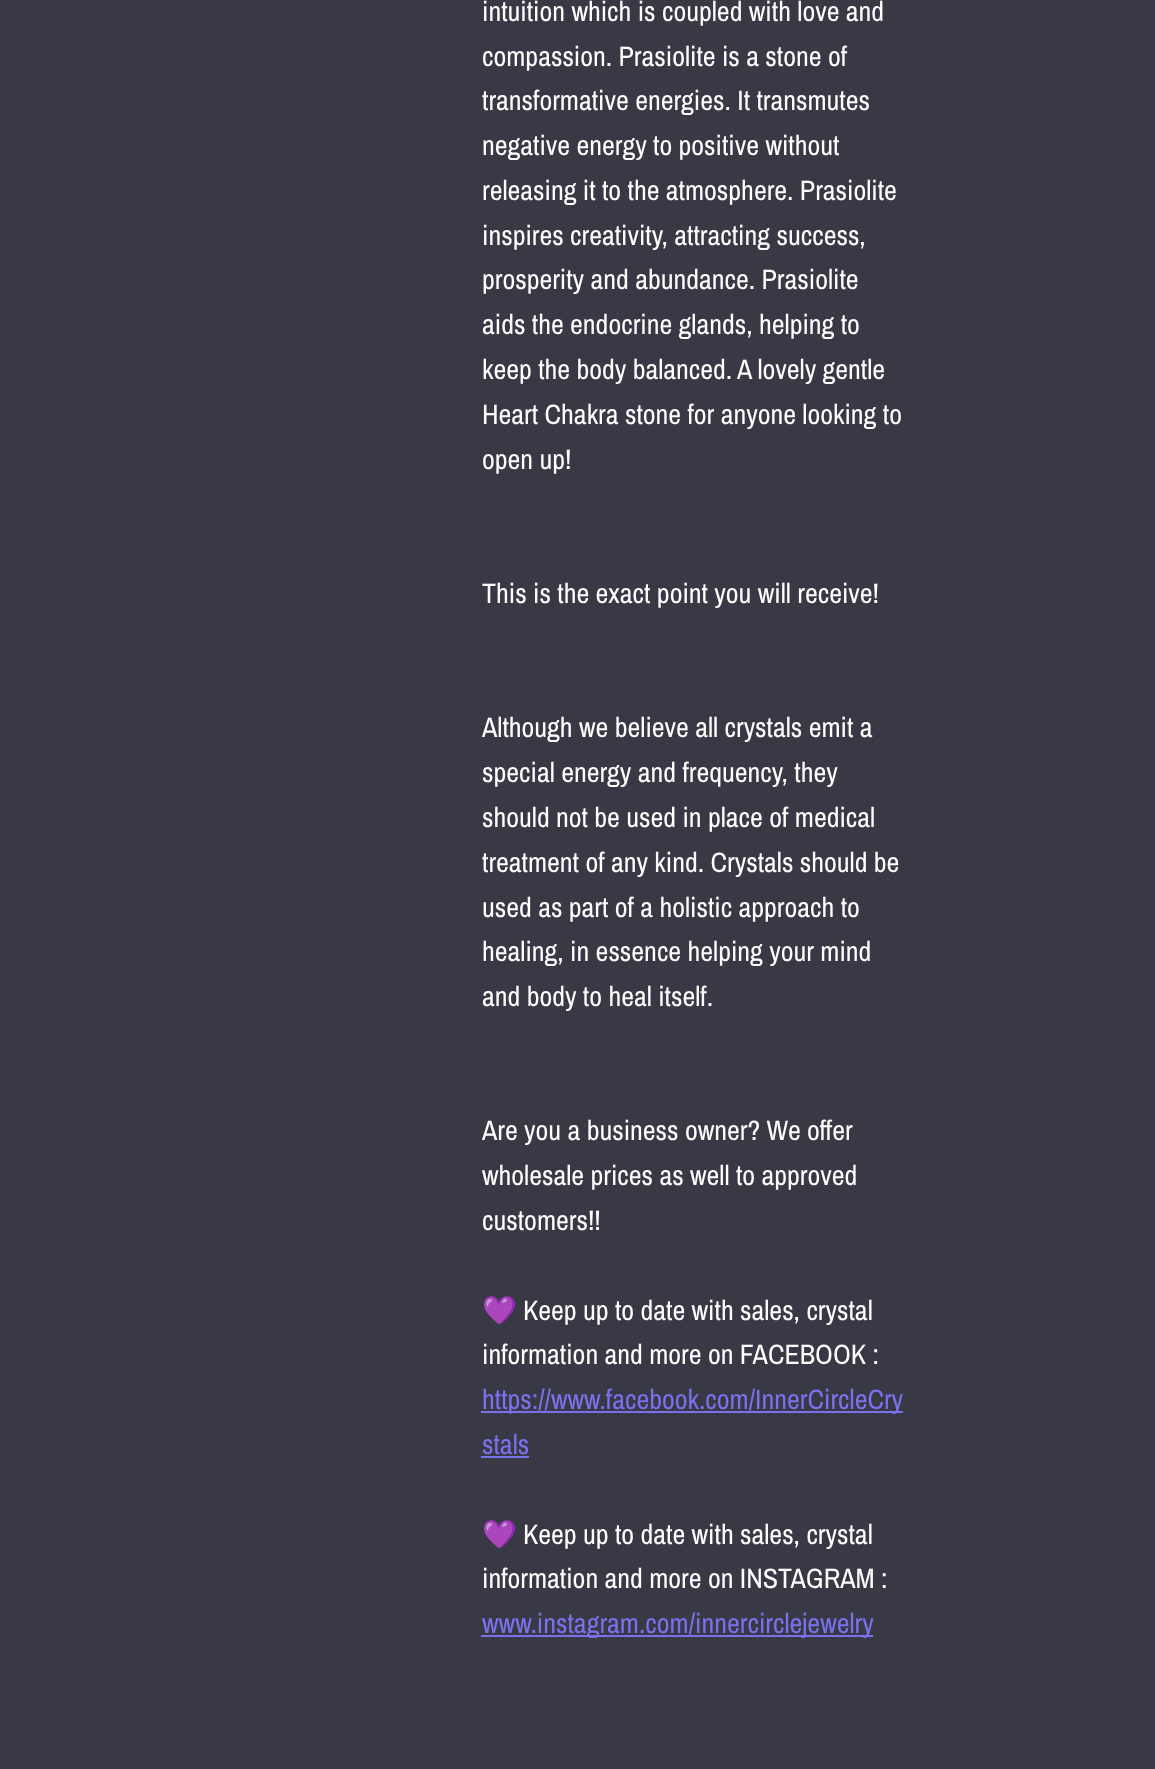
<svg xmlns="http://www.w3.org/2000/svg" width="1155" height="1769">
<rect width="100%" height="100%" fill="#383945"/>
<text x="482" y="21" style="font-family:Archivo Narrow;font-size:28px;fill:#fff">intuition which is coupled with love and</text>
<text x="482" y="66" style="font-family:Archivo Narrow;font-size:28px;fill:#fff">compassion. Prasiolite is a stone of</text>
<text x="482" y="110" style="font-family:Archivo Narrow;font-size:28px;fill:#fff">transformative energies. It transmutes</text>
<text x="482" y="155" style="font-family:Archivo Narrow;font-size:28px;fill:#fff">negative energy to positive without</text>
<text x="482" y="200" style="font-family:Archivo Narrow;font-size:28px;fill:#fff">releasing it to the atmosphere. Prasiolite</text>
<text x="482" y="245" style="font-family:Archivo Narrow;font-size:28px;fill:#fff">inspires creativity, attracting success,</text>
<text x="482" y="289" style="font-family:Archivo Narrow;font-size:28px;fill:#fff">prosperity and abundance. Prasiolite</text>
<text x="482" y="334" style="font-family:Archivo Narrow;font-size:28px;fill:#fff">aids the endocrine glands, helping to</text>
<text x="482" y="379" style="font-family:Archivo Narrow;font-size:28px;fill:#fff">keep the body balanced.</text>
<text x="737" y="379" style="font-family:Archivo Narrow;font-size:28px;fill:#fff">A lovely gentle</text>
<text x="482" y="424" style="font-family:Archivo Narrow;font-size:28px;fill:#fff">Heart Chakra stone for anyone looking to</text>
<text x="482" y="469" style="font-family:Archivo Narrow;font-size:28px;fill:#fff">open up!</text>
<text x="482" y="603" style="font-family:Archivo Narrow;font-size:28px;fill:#fff">This is the exact point you will receive!</text>
<text x="482" y="737" style="font-family:Archivo Narrow;font-size:28px;fill:#fff">Although we believe all crystals emit a</text>
<text x="482" y="782" style="font-family:Archivo Narrow;font-size:28px;fill:#fff">special energy and frequency, they</text>
<text x="482" y="827" style="font-family:Archivo Narrow;font-size:28px;fill:#fff">should not be used in place of medical</text>
<text x="482" y="872" style="font-family:Archivo Narrow;font-size:28px;fill:#fff">treatment of any kind. Crystals should be</text>
<text x="482" y="917" style="font-family:Archivo Narrow;font-size:28px;fill:#fff">used as part of a holistic approach to</text>
<text x="482" y="961" style="font-family:Archivo Narrow;font-size:28px;fill:#fff">healing, in essence helping your mind</text>
<text x="482" y="1006" style="font-family:Archivo Narrow;font-size:28px;fill:#fff">and body to heal itself.</text>
<text x="482" y="1140" style="font-family:Archivo Narrow;font-size:28px;fill:#fff">Are you a business owner? We offer</text>
<text x="482" y="1185" style="font-family:Archivo Narrow;font-size:28px;fill:#fff">wholesale prices as well to approved</text>
<text x="482" y="1230" style="font-family:Archivo Narrow;font-size:28px;fill:#fff">customers!!</text>
<text x="482" y="1320" style="font-family:Noto Color Emoji;font-size:28px;fill:#fff">💜</text>
<text x="523" y="1320" style="font-family:Archivo Narrow;font-size:28px;fill:#fff">Keep up to date with sales, crystal</text>
<text x="482" y="1364" style="font-family:Archivo Narrow;font-size:28px;fill:#fff">information and more on FACEBOOK :</text>
<rect x="481" y="1411" width="422" height="2" fill="#7972ec"/>
<text x="482" y="1409" style="font-family:Archivo Narrow;font-size:28px;fill:#7972ec">https://www.facebook.com/InnerCircleCry</text>
<text x="482" y="1454" style="font-family:Archivo Narrow;font-size:28px;fill:#7972ec">stals</text>
<rect x="481" y="1456" width="48" height="2" fill="#7972ec"/>
<text x="482" y="1544" style="font-family:Noto Color Emoji;font-size:28px;fill:#fff">💜</text>
<text x="523" y="1544" style="font-family:Archivo Narrow;font-size:28px;fill:#fff">Keep up to date with sales, crystal</text>
<text x="482" y="1588" style="font-family:Archivo Narrow;font-size:28px;fill:#fff">information and more on INSTAGRAM :</text>
<rect x="481" y="1635" width="392" height="2" fill="#7972ec"/>
<text x="482" y="1633" style="font-family:Archivo Narrow;font-size:28px;fill:#7972ec">www.instagram.com/innercirclejewelry</text>
</svg>
